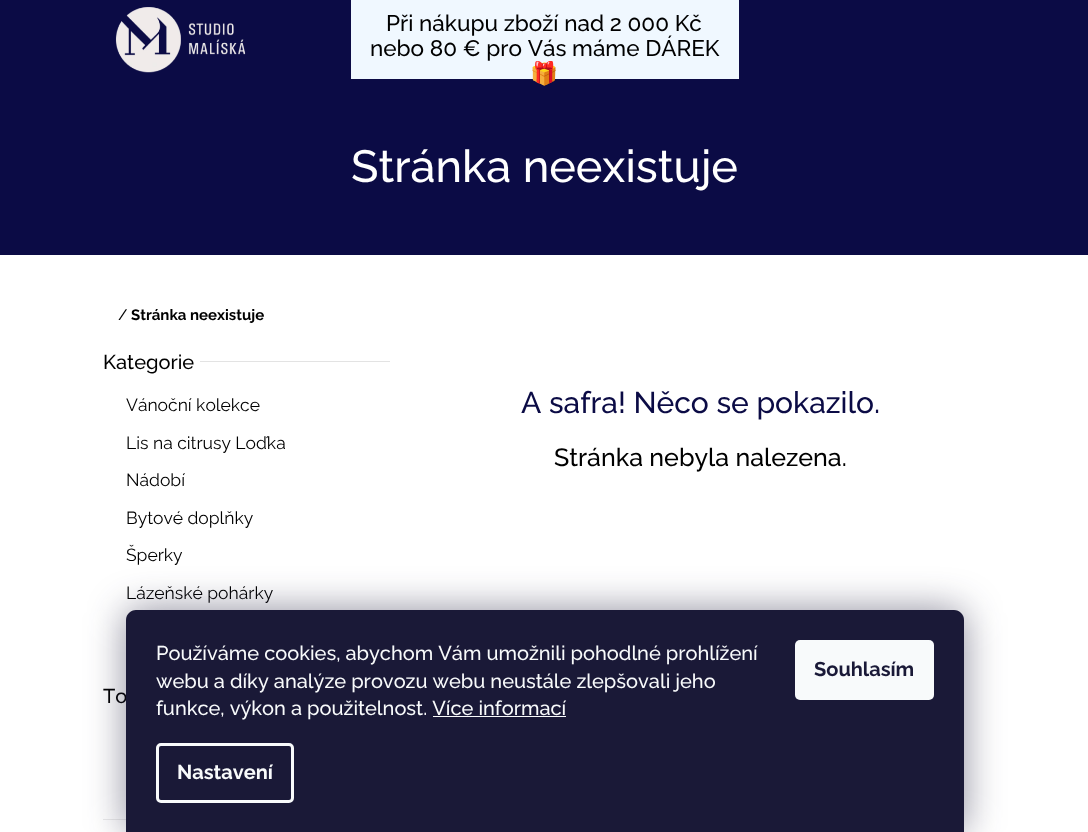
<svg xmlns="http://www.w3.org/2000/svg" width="1088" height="832">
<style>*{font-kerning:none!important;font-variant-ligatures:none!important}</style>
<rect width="100%" height="100%" fill="#fff"/>
<rect width="1088" height="255" fill="#0b0b45"/>
<image x="115" y="7" width="131" height="66" href="media/1.png"/>
<rect x="351" width="388" height="79" fill="#f0f8ff"/>
<text x="386" y="31" style="font-family:Raleway;font-size:22.5px;font-weight:500;fill:#000">Při nákupu zboží nad 2 000 Kč</text>
<text x="370" y="56" style="font-family:Raleway;font-size:22.5px;font-weight:500;fill:#000">nebo 80 € pro Vás máme DÁREK</text>
<text x="530" y="81" style="font-family:Noto Color Emoji;font-size:22.5px;fill:#000">🎁</text>
<text x="351" y="182" style="font-family:Raleway;font-size:45px;font-weight:500;fill:#fff">Stránka neexistuje</text>
<text x="118" y="320" style="font-family:Raleway;font-size:15px;font-weight:500;fill:#000">/</text>
<text x="131" y="320" style="font-family:Raleway;font-size:15px;font-weight:bold;fill:#000">Stránka neexistuje</text>
<text x="103" y="369" style="font-family:Raleway;font-size:20px;font-weight:500;fill:#000">Kategorie</text>
<rect x="200" y="361" width="190" height="1" fill="#e3e3e3"/>
<text x="126" y="411" style="font-family:Raleway;font-size:17.5px;fill:#000">Vánoční kolekce</text>
<text x="126" y="449" style="font-family:Raleway;font-size:17.5px;fill:#000">Lis na citrusy Loďka</text>
<text x="126" y="486" style="font-family:Raleway;font-size:17.5px;fill:#000">Nádobí</text>
<text x="126" y="524" style="font-family:Raleway;font-size:17.5px;fill:#000">Bytové doplňky</text>
<text x="126" y="561" style="font-family:Raleway;font-size:17.5px;fill:#000">Šperky</text>
<text x="126" y="599" style="font-family:Raleway;font-size:17.5px;fill:#000">Lázeňské pohárky</text>
<text x="103" y="703" style="font-family:Raleway;font-size:20px;font-weight:500;fill:#000">To</text>
<rect x="103" y="819" width="23" height="1" fill="#ebebeb"/>
<text x="521" y="413" style="font-family:Raleway;font-size:30px;font-weight:500;fill:#0b0b45">A safra! Něco se pokazilo.</text>
<text x="554" y="466" style="font-family:Raleway;font-size:25px;font-weight:500;fill:#000">Stránka nebyla nalezena.</text>
<rect x="126" y="610" width="838" height="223" rx="10" fill="#1b193980" filter="blur(19px)"/>
<path d="M136 610h818c5.5 0 10 4.5 10 10v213h-838v-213c0-5.5 4.5-10 10-10z" fill="#1a1937"/>
<text x="156" y="660" style="font-family:Raleway;font-size:20px;font-weight:500;fill:#f8fafb">Používáme cookies, abychom Vám umožnili pohodlné prohlížení</text>
<text x="156" y="688" style="font-family:Raleway;font-size:20px;font-weight:500;fill:#f8fafb">webu a díky analýze provozu webu neustále zlepšovali jeho</text>
<text x="156" y="715" style="font-family:Raleway;font-size:20px;font-weight:500;fill:#f8fafb">funkce, výkon a použitelnost. Více informací</text>
<rect x="433" y="716" width="133" height="1" fill="#f8fafb"/>
<rect x="157.5" y="744.5" width="135" height="57" rx="3.5" fill="none" stroke="#f8fafb" stroke-width="3"/>
<text x="177" y="779" style="font-family:Raleway;font-size:20px;font-weight:bold;fill:#f8fafb">Nastavení</text>
<rect x="795" y="640" width="139" height="60" rx="5" fill="#f8fafb"/>
<text x="814" y="676" style="font-family:Raleway;font-size:20px;font-weight:bold;fill:#1a1937">Souhlasím</text>
</svg>
